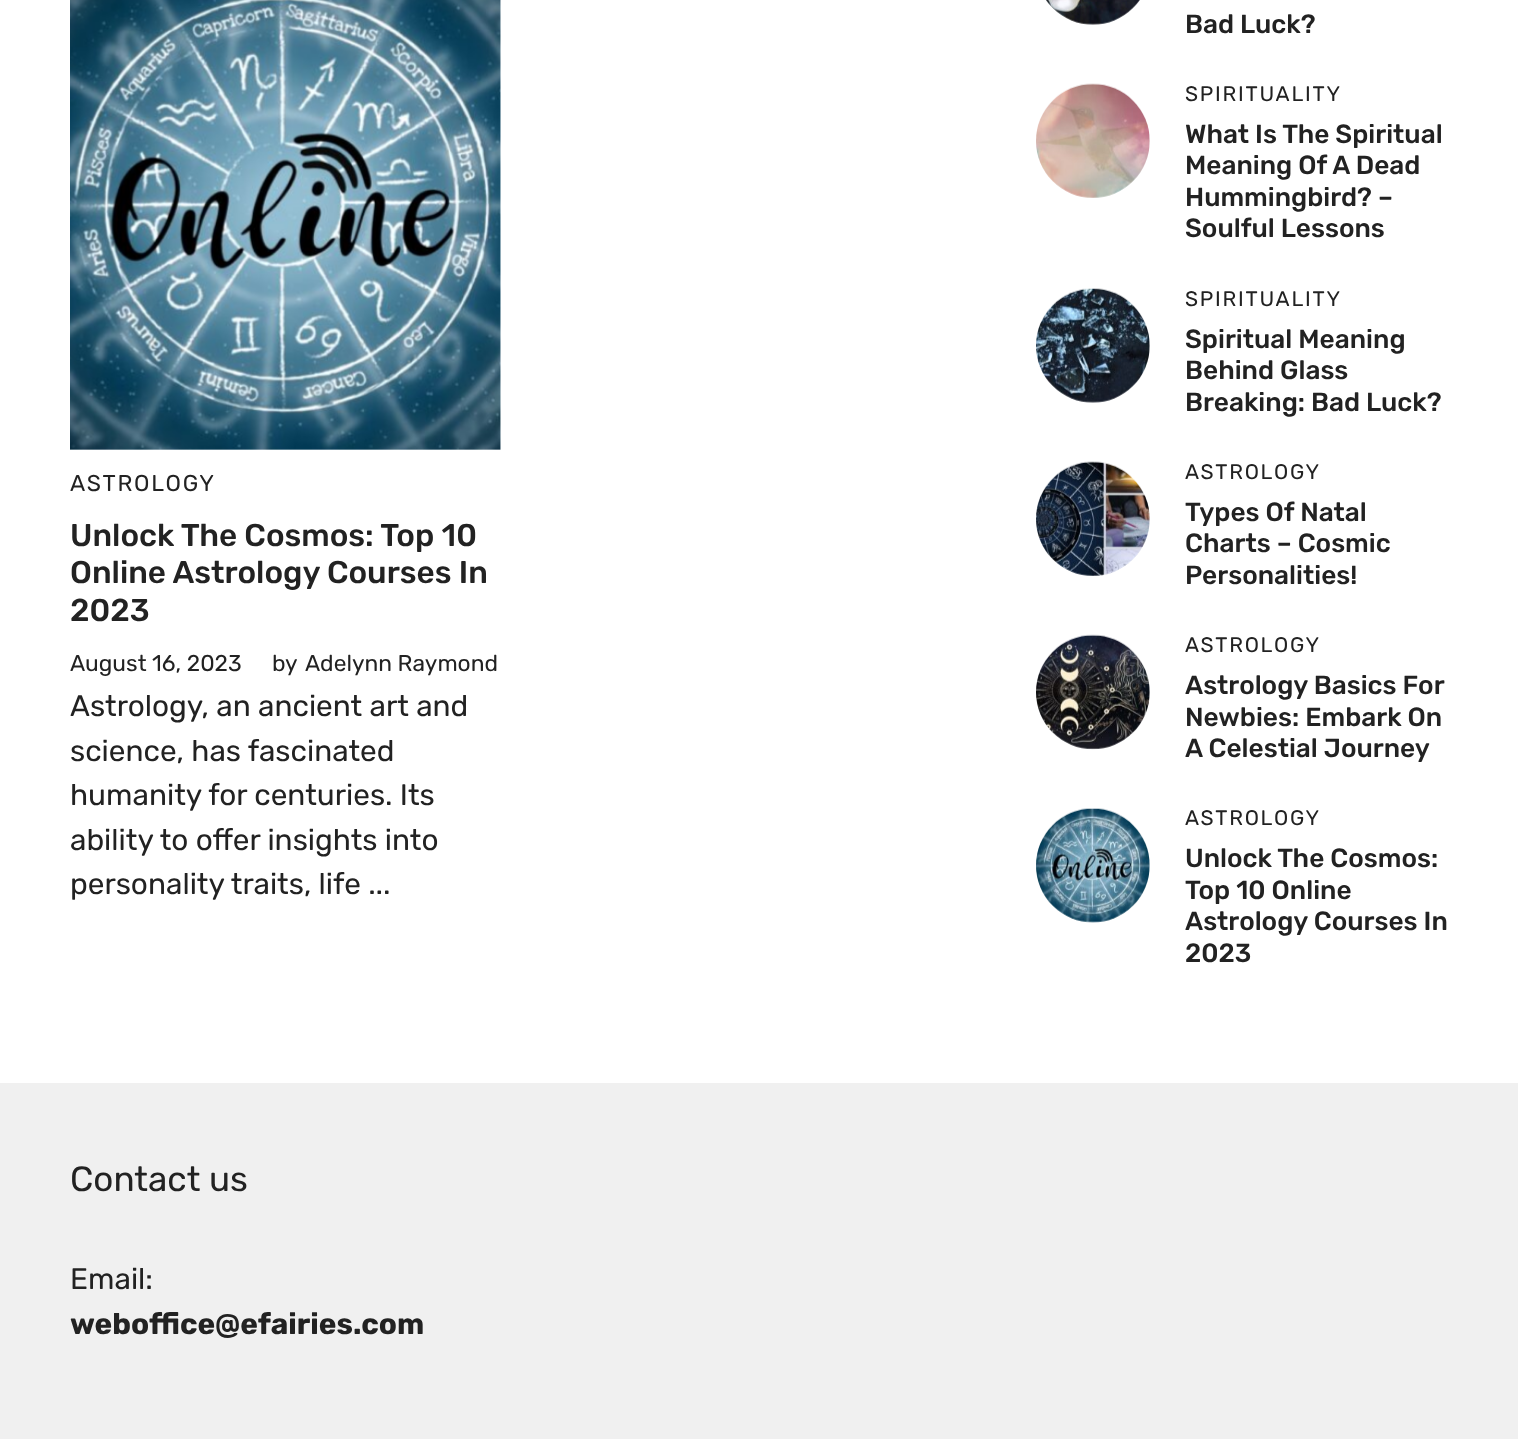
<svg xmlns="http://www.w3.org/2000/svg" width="1518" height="1439">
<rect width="100%" height="100%" fill="#fff"/>
<image x="70" y="0" width="431" height="450" href="media/1.png"/>
<text x="70" y="491" style="font-family:Rubik;font-size:22.75px;letter-spacing:1.75px;fill:#222">ASTROLOGY</text>
<text x="70" y="546" style="font-family:Rubik;font-size:31.5px;font-weight:500;fill:#222">Unlock The Cosmos: Top 10</text>
<text x="70" y="583" style="font-family:Rubik;font-size:31.5px;font-weight:500;fill:#222">Online Astrology Courses In</text>
<text x="70" y="621" style="font-family:Rubik;font-size:31.5px;font-weight:500;fill:#222">2023</text>
<text x="70" y="671" style="font-family:Rubik;font-size:22.75px;fill:#222">August 16, 2023</text>
<text x="272" y="671" style="font-family:Rubik;font-size:22.75px;fill:#222">by</text>
<text x="305" y="671" style="font-family:Rubik;font-size:22.75px;fill:#222">Adelynn Raymond</text>
<text x="70" y="716" style="font-family:Rubik;font-size:29.75px;fill:#222">Astrology, an ancient art and</text>
<text x="70" y="761" style="font-family:Rubik;font-size:29.75px;fill:#222">science, has fascinated</text>
<text x="70" y="805" style="font-family:Rubik;font-size:29.75px;fill:#222">humanity for centuries. Its</text>
<text x="70" y="850" style="font-family:Rubik;font-size:29.75px;fill:#222">ability to offer insights into</text>
<text x="70" y="894" style="font-family:Rubik;font-size:29.75px;fill:#222">personality traits, life ...</text>
<image x="1046" y="0" width="94" height="25" href="media/2.png"/>
<text x="1185" y="33" style="font-family:Rubik;font-size:26.25px;font-weight:500;fill:#222">Bad Luck?</text>
<image x="1036" y="83" width="114" height="115" href="media/3.png"/>
<text x="1185" y="101" style="font-family:Rubik;font-size:21px;letter-spacing:1.75px;fill:#222">SPIRITUALITY</text>
<text x="1185" y="143" style="font-family:Rubik;font-size:26.25px;font-weight:500;fill:#222">What Is The Spiritual</text>
<text x="1185" y="174" style="font-family:Rubik;font-size:26.25px;font-weight:500;fill:#222">Meaning Of A Dead</text>
<text x="1185" y="206" style="font-family:Rubik;font-size:26.25px;font-weight:500;fill:#222">Hummingbird? –</text>
<text x="1185" y="237" style="font-family:Rubik;font-size:26.25px;font-weight:500;fill:#222">Soulful Lessons</text>
<image x="1036" y="288" width="114" height="115" href="media/4.png"/>
<text x="1185" y="306" style="font-family:Rubik;font-size:21px;letter-spacing:1.75px;fill:#222">SPIRITUALITY</text>
<text x="1185" y="348" style="font-family:Rubik;font-size:26.25px;font-weight:500;fill:#222">Spiritual Meaning</text>
<text x="1185" y="379" style="font-family:Rubik;font-size:26.25px;font-weight:500;fill:#222">Behind Glass</text>
<text x="1185" y="411" style="font-family:Rubik;font-size:26.25px;font-weight:500;fill:#222">Breaking: Bad Luck?</text>
<image x="1036" y="461" width="114" height="115" href="media/5.png"/>
<text x="1185" y="479" style="font-family:Rubik;font-size:21px;letter-spacing:1.75px;fill:#222">ASTROLOGY</text>
<text x="1185" y="521" style="font-family:Rubik;font-size:26.25px;font-weight:500;fill:#222">Types Of Natal</text>
<text x="1185" y="552" style="font-family:Rubik;font-size:26.25px;font-weight:500;fill:#222">Charts – Cosmic</text>
<text x="1185" y="584" style="font-family:Rubik;font-size:26.25px;font-weight:500;fill:#222">Personalities!</text>
<image x="1036" y="634" width="114" height="116" href="media/6.png"/>
<text x="1185" y="652" style="font-family:Rubik;font-size:21px;letter-spacing:1.75px;fill:#222">ASTROLOGY</text>
<text x="1185" y="694" style="font-family:Rubik;font-size:26.25px;font-weight:500;fill:#222">Astrology Basics For</text>
<text x="1185" y="726" style="font-family:Rubik;font-size:26.25px;font-weight:500;fill:#222">Newbies: Embark On</text>
<text x="1185" y="757" style="font-family:Rubik;font-size:26.25px;font-weight:500;fill:#222">A Celestial Journey</text>
<image x="1036" y="808" width="114" height="115" href="media/7.png"/>
<text x="1185" y="825" style="font-family:Rubik;font-size:21px;letter-spacing:1.75px;fill:#222">ASTROLOGY</text>
<text x="1185" y="867" style="font-family:Rubik;font-size:26.25px;font-weight:500;fill:#222">Unlock The Cosmos:</text>
<text x="1185" y="899" style="font-family:Rubik;font-size:26.25px;font-weight:500;fill:#222">Top 10 Online</text>
<text x="1185" y="930" style="font-family:Rubik;font-size:26.25px;font-weight:500;fill:#222">Astrology Courses In</text>
<text x="1185" y="962" style="font-family:Rubik;font-size:26.25px;font-weight:500;fill:#222">2023</text>
<rect y="1083" width="1518" height="356" fill="#f0f0f0"/>
<text x="70" y="1191" style="font-family:Rubik;font-size:35px;fill:#222">Contact us</text>
<text x="70" y="1289" style="font-family:Rubik;font-size:29.75px;fill:#222">Email:</text>
<text x="70" y="1334" style="font-family:Rubik;font-size:29.75px;font-weight:bold;fill:#222">weboffice@efairies.com</text>
</svg>
